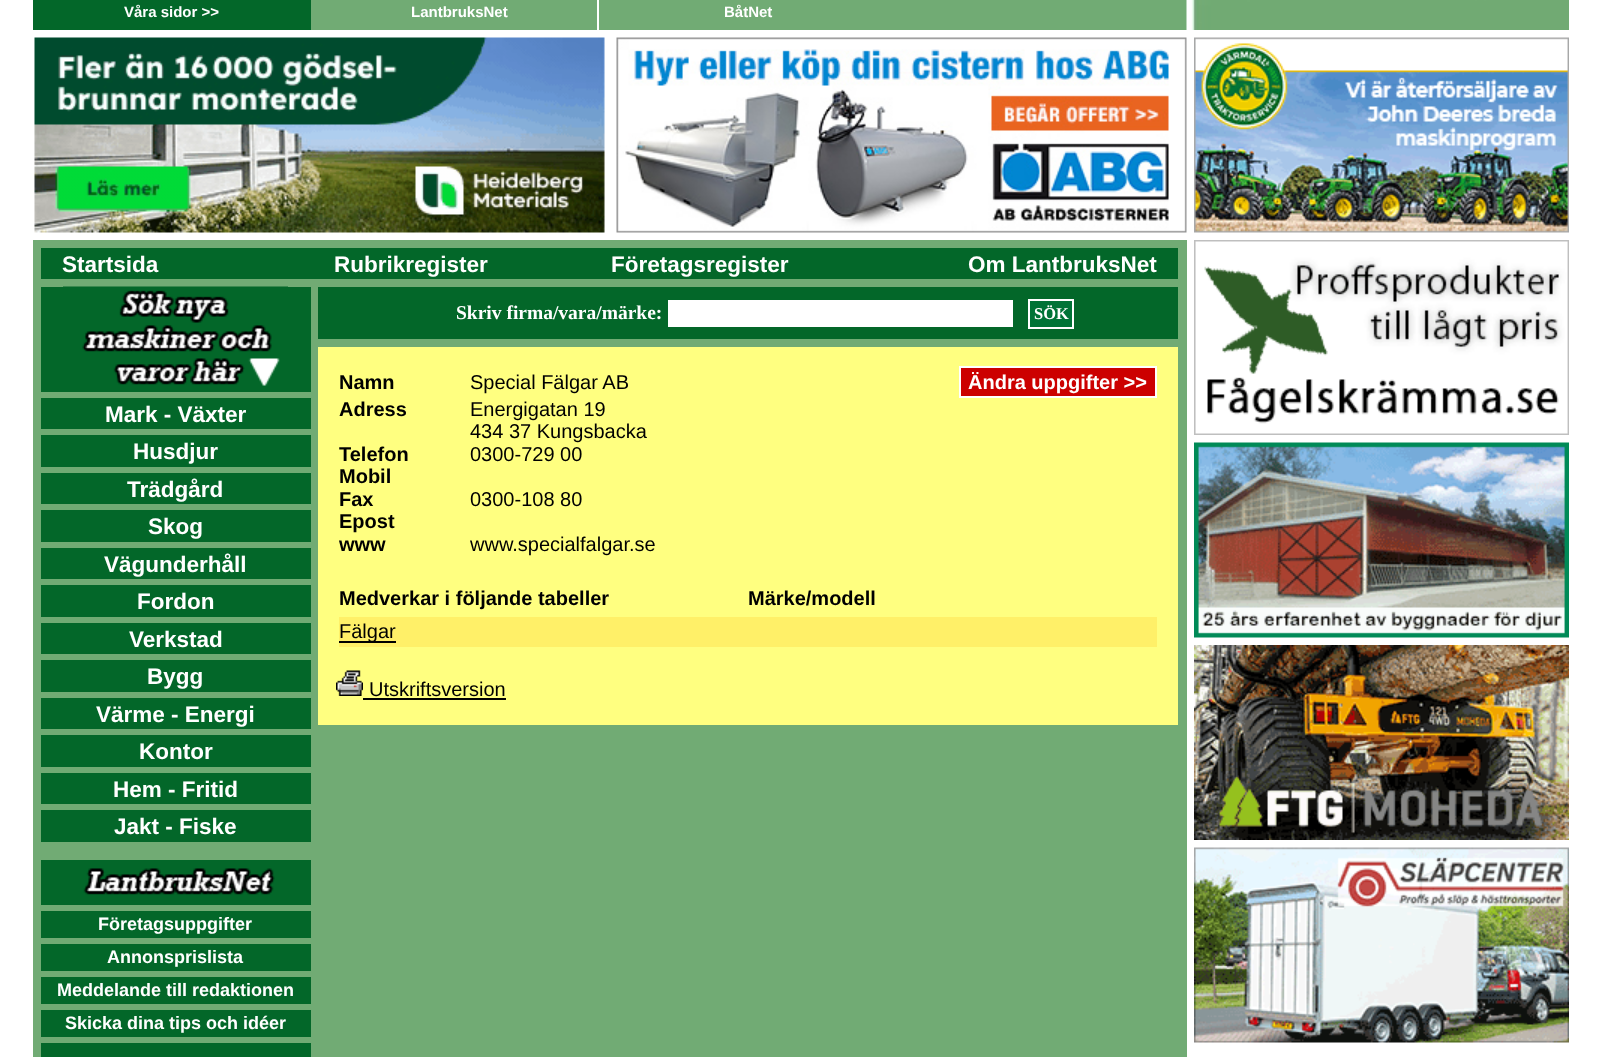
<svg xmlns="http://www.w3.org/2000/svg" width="1602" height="1057">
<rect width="100%" height="100%" fill="#fff"/>
<rect x="311" width="876" height="30" fill="#71ab74"/>
<rect x="33" width="278" height="30" fill="#036729"/>
<text x="124" y="17" style="font-family:Liberation Sans;font-size:15px;font-weight:bold;fill:#fff">Våra sidor &gt;&gt;</text>
<rect x="597" width="2" height="30" fill="#fff"/>
<text x="411" y="17" style="font-family:Liberation Sans;font-size:15px;font-weight:bold;fill:#fff">LantbruksNet</text>
<text x="724" y="17" style="font-family:Liberation Sans;font-size:15px;font-weight:bold;fill:#fff">BåtNet</text>
<image x="1186" y="0" width="383" height="30" href="media/1.png"/>
<image x="34" y="37" width="571" height="196" href="media/2.png"/>
<image x="616" y="37" width="571" height="196" href="media/3.png"/>
<image x="1194" y="37" width="375" height="196" href="media/4.png"/>
<rect x="33" y="240" width="1154" height="817" fill="#71ab74"/>
<rect x="41" y="248" width="1137" height="31" fill="#036729"/>
<text x="62" y="272" style="font-family:Liberation Sans;font-size:22.5px;font-weight:bold;fill:#fff">Startsida</text>
<text x="334" y="272" style="font-family:Liberation Sans;font-size:22.5px;font-weight:bold;fill:#fff">Rubrikregister</text>
<text x="611" y="272" style="font-family:Liberation Sans;font-size:22.5px;font-weight:bold;fill:#fff">Företagsregister</text>
<text x="968" y="272" style="font-family:Liberation Sans;font-size:22.5px;font-weight:bold;fill:#fff">Om LantbruksNet</text>
<rect x="41" y="287" width="270" height="105" fill="#036729"/>
<image x="63" y="286" width="225" height="100" href="media/5.png"/>
<rect x="41" y="398" width="270" height="31" fill="#036729"/>
<text x="105" y="422" style="font-family:Liberation Sans;font-size:22.5px;font-weight:bold;fill:#fff">Mark - Växter</text>
<rect x="41" y="435" width="270" height="32" fill="#036729"/>
<text x="133" y="459" style="font-family:Liberation Sans;font-size:22.5px;font-weight:bold;fill:#fff">Husdjur</text>
<rect x="41" y="473" width="270" height="31" fill="#036729"/>
<text x="127" y="497" style="font-family:Liberation Sans;font-size:22.5px;font-weight:bold;fill:#fff">Trädgård</text>
<rect x="41" y="510" width="270" height="32" fill="#036729"/>
<text x="148" y="534" style="font-family:Liberation Sans;font-size:22.5px;font-weight:bold;fill:#fff">Skog</text>
<rect x="41" y="548" width="270" height="31" fill="#036729"/>
<text x="104" y="572" style="font-family:Liberation Sans;font-size:22.5px;font-weight:bold;fill:#fff">Vägunderhåll</text>
<rect x="41" y="585" width="270" height="32" fill="#036729"/>
<text x="137" y="609" style="font-family:Liberation Sans;font-size:22.5px;font-weight:bold;fill:#fff">Fordon</text>
<rect x="41" y="623" width="270" height="31" fill="#036729"/>
<text x="129" y="647" style="font-family:Liberation Sans;font-size:22.5px;font-weight:bold;fill:#fff">Verkstad</text>
<rect x="41" y="660" width="270" height="32" fill="#036729"/>
<text x="147" y="684" style="font-family:Liberation Sans;font-size:22.5px;font-weight:bold;fill:#fff">Bygg</text>
<rect x="41" y="698" width="270" height="31" fill="#036729"/>
<text x="96" y="722" style="font-family:Liberation Sans;font-size:22.5px;font-weight:bold;fill:#fff">Värme - Energi</text>
<rect x="41" y="735" width="270" height="32" fill="#036729"/>
<text x="139" y="759" style="font-family:Liberation Sans;font-size:22.5px;font-weight:bold;fill:#fff">Kontor</text>
<rect x="41" y="773" width="270" height="31" fill="#036729"/>
<text x="113" y="797" style="font-family:Liberation Sans;font-size:22.5px;font-weight:bold;fill:#fff">Hem - Fritid</text>
<rect x="41" y="810" width="270" height="32" fill="#036729"/>
<text x="114" y="834" style="font-family:Liberation Sans;font-size:22.5px;font-weight:bold;fill:#fff">Jakt - Fiske</text>
<rect x="41" y="860" width="270" height="45" fill="#036729"/>
<image x="83" y="868" width="192" height="27" href="media/6.png"/>
<rect x="41" y="911" width="270" height="27" fill="#036729"/>
<text x="98" y="930" style="font-family:Liberation Sans;font-size:18px;font-weight:bold;fill:#fff">Företagsuppgifter</text>
<rect x="41" y="944" width="270" height="27" fill="#036729"/>
<text x="107" y="963" style="font-family:Liberation Sans;font-size:18px;font-weight:bold;fill:#fff">Annonsprislista</text>
<rect x="41" y="977" width="270" height="27" fill="#036729"/>
<text x="57" y="996" style="font-family:Liberation Sans;font-size:18px;font-weight:bold;fill:#fff">Meddelande till redaktionen</text>
<rect x="41" y="1010" width="270" height="27" fill="#036729"/>
<text x="65" y="1029" style="font-family:Liberation Sans;font-size:18px;font-weight:bold;fill:#fff">Skicka dina tips och idéer</text>
<rect x="41" y="1043" width="270" height="14" fill="#036729"/>
<rect x="318" y="287" width="860" height="52" fill="#036729"/>
<text x="456" y="319" style="font-family:Liberation Serif;font-size:19.5px;font-weight:bold;fill:#fff">Skriv firma/vara/märke:</text>
<rect x="668" y="300" width="345" height="27" fill="#fff"/>
<rect x="1029" y="300" width="44" height="28" fill="#007336" stroke="#fff" stroke-width="2"/>
<text x="1034" y="319" style="font-family:Liberation Serif;font-size:16.5px;font-weight:bold;fill:#fff">SÖK</text>
<rect x="318" y="347" width="860" height="378" fill="#ffff80"/>
<text x="339" y="389" style="font-family:Liberation Sans;font-size:20px;font-weight:bold;fill:#000">Namn</text>
<text x="470" y="389" style="font-family:Liberation Sans;font-size:20px;fill:#000">Special Fälgar AB</text>
<rect x="960" y="367" width="196" height="30" fill="#c00" stroke="#fff" stroke-width="2"/>
<text x="968" y="389" style="font-family:Liberation Sans;font-size:20px;font-weight:bold;fill:#fff">Ändra uppgifter &gt;&gt;</text>
<text x="339" y="416" style="font-family:Liberation Sans;font-size:20px;font-weight:bold;fill:#000">Adress</text>
<text x="470" y="416" style="font-family:Liberation Sans;font-size:20px;fill:#000">Energigatan 19</text>
<text x="470" y="438" style="font-family:Liberation Sans;font-size:20px;fill:#000">434 37 Kungsbacka</text>
<text x="339" y="461" style="font-family:Liberation Sans;font-size:20px;font-weight:bold;fill:#000">Telefon</text>
<text x="470" y="461" style="font-family:Liberation Sans;font-size:20px;fill:#000">0300-729 00</text>
<text x="339" y="483" style="font-family:Liberation Sans;font-size:20px;font-weight:bold;fill:#000">Mobil</text>
<text x="339" y="506" style="font-family:Liberation Sans;font-size:20px;font-weight:bold;fill:#000">Fax</text>
<text x="470" y="506" style="font-family:Liberation Sans;font-size:20px;fill:#000">0300-108 80</text>
<text x="339" y="528" style="font-family:Liberation Sans;font-size:20px;font-weight:bold;fill:#000">Epost</text>
<text x="339" y="551" style="font-family:Liberation Sans;font-size:20px;font-weight:bold;fill:#000">www</text>
<text x="470" y="551" style="font-family:Liberation Sans;font-size:20px;fill:#000">www.specialfalgar.se</text>
<text x="339" y="605" style="font-family:Liberation Sans;font-size:20px;font-weight:bold;fill:#000">Medverkar i följande tabeller</text>
<text x="748" y="605" style="font-family:Liberation Sans;font-size:20px;font-weight:bold;fill:#000">Märke/modell</text>
<rect x="339" y="617" width="818" height="30" fill="#fff068"/>
<rect x="339" y="641" width="57" height="2" fill="#000"/>
<text x="339" y="638" style="font-family:Liberation Sans;font-size:20px;fill:#000">Fälgar</text>
<image x="336" y="670" width="27" height="26" href="media/7.png"/>
<text x="369" y="696" style="font-family:Liberation Sans;font-size:20px;fill:#000">Utskriftsversion</text>
<rect x="363" y="698" width="143" height="2" fill="#000"/>
<image x="1194" y="240" width="375" height="195" href="media/8.png"/>
<image x="1194" y="442" width="375" height="196" href="media/9.png"/>
<image x="1194" y="645" width="375" height="195" href="media/10.png"/>
<image x="1194" y="847" width="375" height="196" href="media/11.png"/>
</svg>
